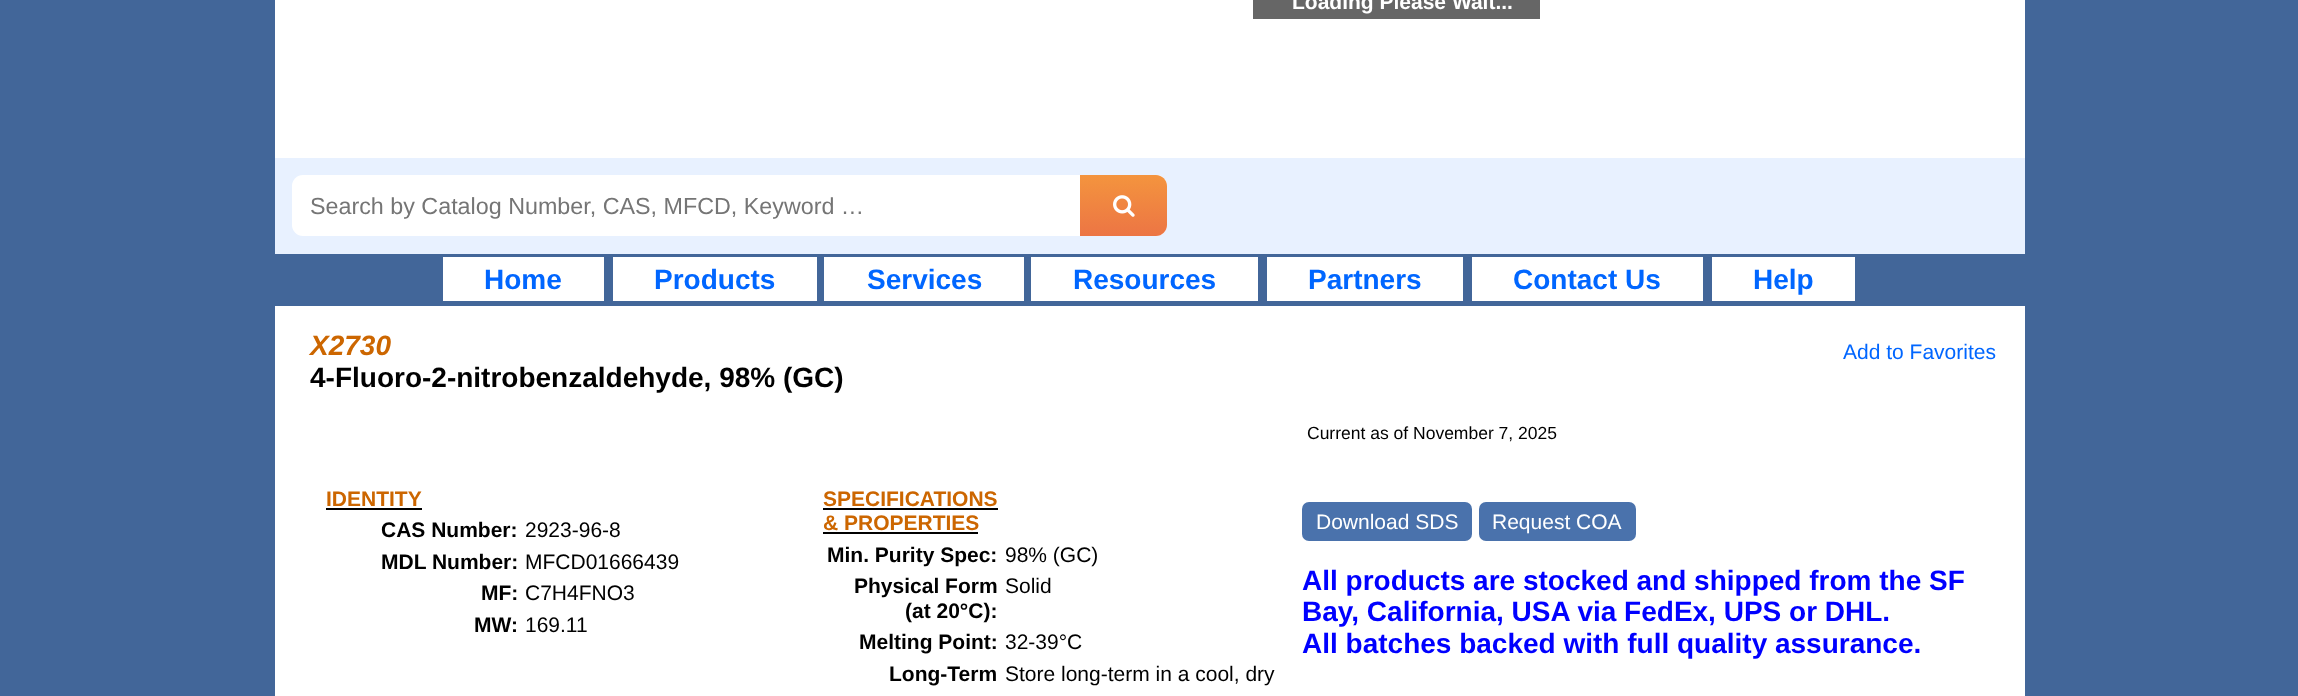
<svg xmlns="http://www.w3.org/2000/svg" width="2298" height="696">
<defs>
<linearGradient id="g1" gradientUnits="userSpaceOnUse" x1="1124" y1="175" x2="1124" y2="236"><stop offset="0" stop-color="#f4943e"/><stop offset="1" stop-color="#ec7544"/></linearGradient>
</defs>
<rect width="100%" height="100%" fill="#426699"/>
<rect x="275" width="1750" height="158" fill="#fff"/>
<rect x="275" y="306" width="1750" height="390" fill="#fff"/>
<rect x="1253" width="287" height="19" fill="#666"/>
<text x="1292" y="9" style="font-family:Liberation Sans;font-size:21px;font-weight:bold;fill:#fff">Loading Please Wait...</text>
<text x="310" y="355" style="font-family:Liberation Sans;font-size:28px;font-weight:bold;font-style:italic;fill:#c60">X2730</text>
<text x="310" y="387" style="font-family:Liberation Sans;font-size:28px;font-weight:bold;fill:#000">4-Fluoro-2-nitrobenzaldehyde, 98% (GC)</text>
<text x="1843" y="359" style="font-family:Liberation Sans;font-size:21px;fill:#06f">Add to Favorites</text>
<text x="326" y="506" style="font-family:Liberation Sans;font-size:21px;font-weight:bold;fill:#c60">IDENTITY</text>
<rect x="326" y="508" width="96" height="2" fill="#000"/>
<text x="381" y="537" style="font-family:Liberation Sans;font-size:21px;font-weight:bold;fill:#000">CAS Number:</text>
<text x="525" y="537" style="font-family:Liberation Sans;font-size:21px;fill:#000">2923-96-8</text>
<text x="381" y="569" style="font-family:Liberation Sans;font-size:21px;font-weight:bold;fill:#000">MDL Number:</text>
<text x="525" y="569" style="font-family:Liberation Sans;font-size:21px;fill:#000">MFCD01666439</text>
<text x="481" y="600" style="font-family:Liberation Sans;font-size:21px;font-weight:bold;fill:#000">MF:</text>
<text x="525" y="600" style="font-family:Liberation Sans;font-size:21px;fill:#000">C7H4FNO3</text>
<text x="474" y="632" style="font-family:Liberation Sans;font-size:21px;font-weight:bold;fill:#000">MW:</text>
<text x="525" y="632" style="font-family:Liberation Sans;font-size:21px;fill:#000">169.11</text>
<text x="823" y="506" style="font-family:Liberation Sans;font-size:21px;font-weight:bold;fill:#c60">SPECIFICATIONS</text>
<rect x="823" y="508" width="175" height="2" fill="#000"/>
<text x="823" y="530" style="font-family:Liberation Sans;font-size:21px;font-weight:bold;fill:#c60">&amp; PROPERTIES</text>
<rect x="823" y="532" width="155" height="2" fill="#000"/>
<text x="827" y="562" style="font-family:Liberation Sans;font-size:21px;font-weight:bold;fill:#000">Min. Purity Spec:</text>
<text x="1005" y="562" style="font-family:Liberation Sans;font-size:21px;fill:#000">98% (GC)</text>
<text x="854" y="593" style="font-family:Liberation Sans;font-size:21px;font-weight:bold;fill:#000">Physical Form</text>
<text x="905" y="618" style="font-family:Liberation Sans;font-size:21px;font-weight:bold;fill:#000">(at 20°C):</text>
<text x="1005" y="593" style="font-family:Liberation Sans;font-size:21px;fill:#000">Solid</text>
<text x="859" y="649" style="font-family:Liberation Sans;font-size:21px;font-weight:bold;fill:#000">Melting Point:</text>
<text x="1005" y="649" style="font-family:Liberation Sans;font-size:21px;fill:#000">32-39°C</text>
<text x="889" y="681" style="font-family:Liberation Sans;font-size:21px;font-weight:bold;fill:#000">Long-Term</text>
<text x="1005" y="681" style="font-family:Liberation Sans;font-size:21px;fill:#000">Store long-term in a cool, dry</text>
<text x="1307" y="439" style="font-family:Liberation Sans;font-size:17.5px;fill:#000">Current as of November 7, 2025</text>
<rect x="1302" y="502" width="170" height="39" rx="7" fill="#4a72ac"/>
<text x="1316" y="529" style="font-family:Liberation Sans;font-size:21px;fill:#fff">Download SDS</text>
<rect x="1479" y="502" width="157" height="39" rx="7" fill="#4a72ac"/>
<text x="1492" y="529" style="font-family:Liberation Sans;font-size:21px;fill:#fff">Request COA</text>
<text x="1302" y="590" style="font-family:Liberation Sans;font-size:28px;font-weight:bold;fill:#00f">All products are stocked and shipped from the SF</text>
<text x="1302" y="621" style="font-family:Liberation Sans;font-size:28px;font-weight:bold;fill:#00f">Bay, California, USA via FedEx, UPS or DHL.</text>
<text x="1302" y="653" style="font-family:Liberation Sans;font-size:28px;font-weight:bold;fill:#00f">All batches backed with full quality assurance.</text>
<rect x="275" y="158" width="1750" height="96" fill="#e8f1ff"/>
<rect x="292" y="175" width="875" height="61" rx="11" fill="#fff"/>
<text x="310" y="214" style="font-family:Liberation Sans;font-size:23.3px;fill:#757575">Search by Catalog Number, CAS, MFCD, Keyword …</text>
<path d="M1080 175h76c6 0 11 5 11 11v39c0 6-5 11-11 11h-76z" fill="url(#g1)"/>
<image x="1113" y="195" width="22" height="22" href="media/1.png"/>
<rect x="443" y="257" width="161" height="44" fill="#fff"/>
<text x="484" y="289" style="font-family:Liberation Sans;font-size:28px;font-weight:bold;fill:#06f">Home</text>
<rect x="613" y="257" width="204" height="44" fill="#fff"/>
<text x="654" y="289" style="font-family:Liberation Sans;font-size:28px;font-weight:bold;fill:#06f">Products</text>
<rect x="824" y="257" width="200" height="44" fill="#fff"/>
<text x="867" y="289" style="font-family:Liberation Sans;font-size:28px;font-weight:bold;fill:#06f">Services</text>
<rect x="1031" y="257" width="227" height="44" fill="#fff"/>
<text x="1073" y="289" style="font-family:Liberation Sans;font-size:28px;font-weight:bold;fill:#06f">Resources</text>
<rect x="1267" y="257" width="196" height="44" fill="#fff"/>
<text x="1308" y="289" style="font-family:Liberation Sans;font-size:28px;font-weight:bold;fill:#06f">Partners</text>
<rect x="1472" y="257" width="231" height="44" fill="#fff"/>
<text x="1513" y="289" style="font-family:Liberation Sans;font-size:28px;font-weight:bold;fill:#06f">Contact Us</text>
<rect x="1712" y="257" width="143" height="44" fill="#fff"/>
<text x="1753" y="289" style="font-family:Liberation Sans;font-size:28px;font-weight:bold;fill:#06f">Help</text>
</svg>
